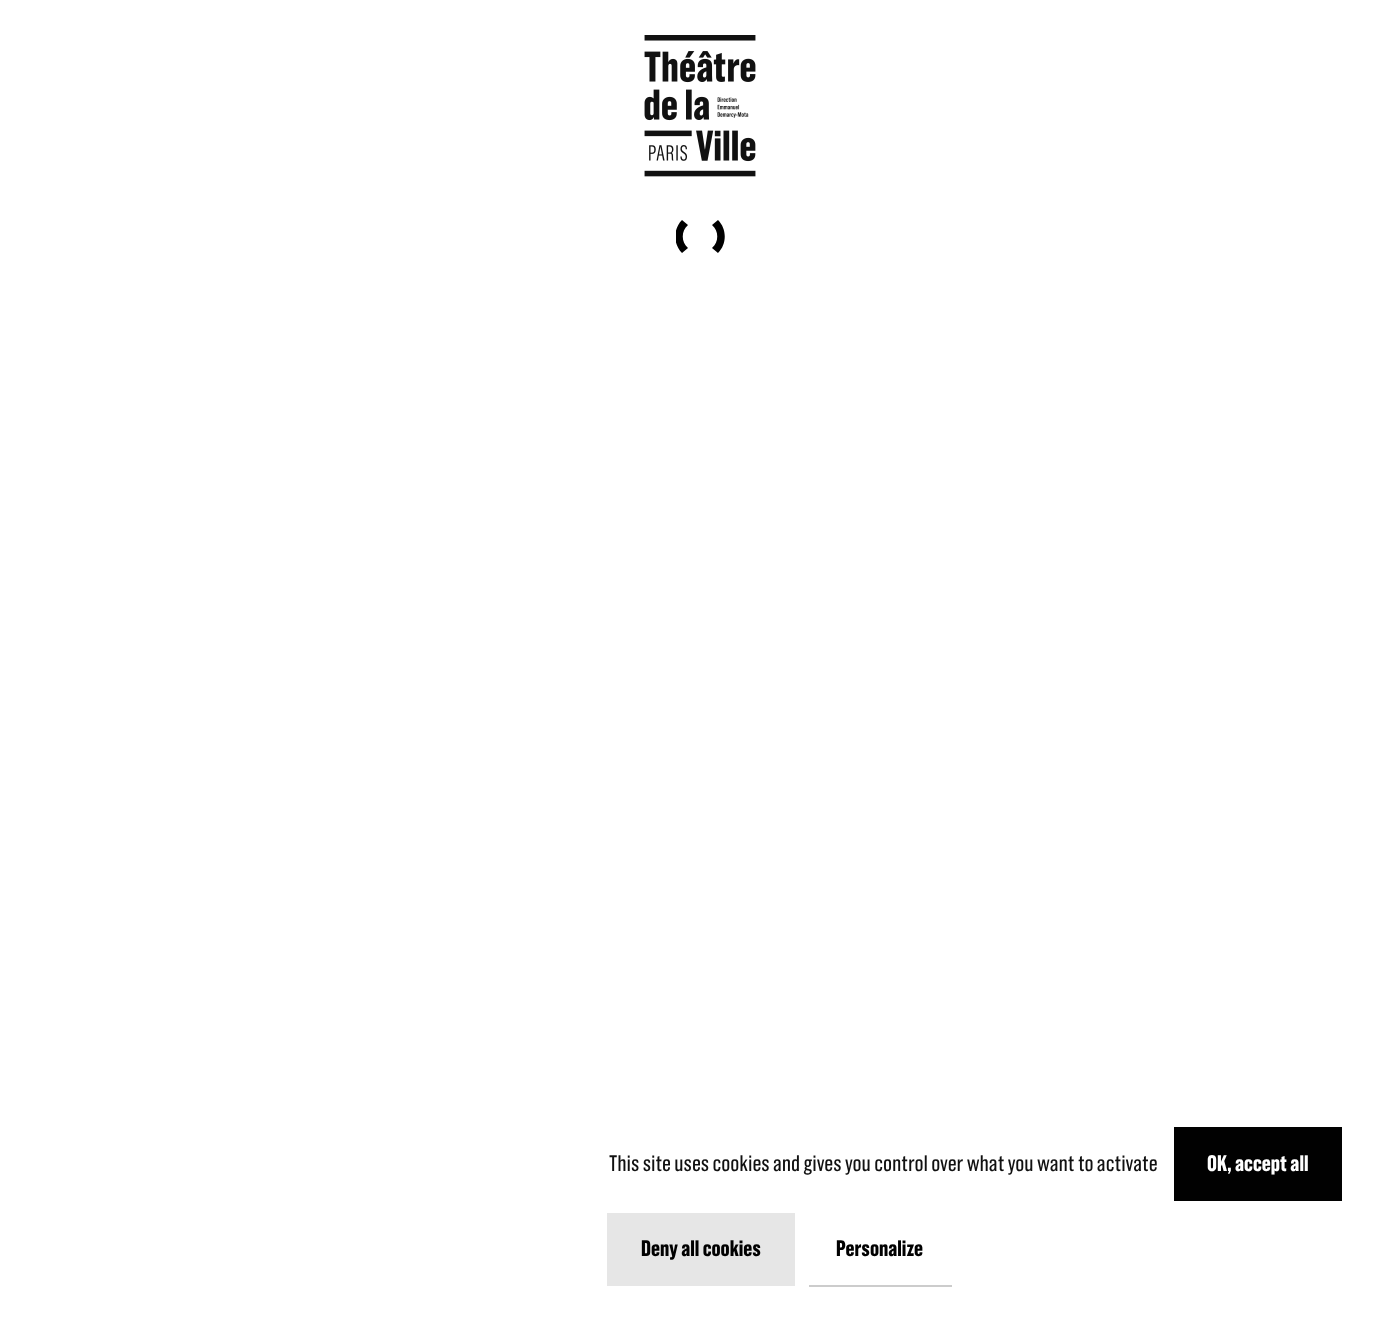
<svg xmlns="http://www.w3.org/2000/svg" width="1397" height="1334">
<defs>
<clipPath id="clip1"><rect x="676" y="212" width="49" height="49"/></clipPath>
</defs>
<rect width="100%" height="100%" fill="#fff"/>
<image x="28" y="35" width="112" height="142" href="media/1.png"/>
<image x="1258" y="31" width="29" height="32" href="media/2.png"/>
<image x="644" y="35" width="112" height="142" href="media/3.png"/>
<g clip-path="url(#clip1)">
<path d="M682 220l6 5c-7 6-7 17 0 23l-6 5c-9-9-9-24 0-33zm36 0c9 9 9 24 0 33l-6-5c7-6 7-17 0-23z" fill="#000" fill-rule="evenodd"/>
</g>
<text x="609" y="1171" style="font-family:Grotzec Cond;font-size:22.4px;fill:#111">This site uses cookies and gives you control over what you want to activate</text>
<rect x="1174" y="1127" width="168" height="74" fill="#010101"/>
<text x="1207" y="1171" style="font-family:Grotzec Cond;font-size:22.4px;font-weight:bold;fill:#fff">OK, accept all</text>
<rect x="607" y="1213" width="188" height="73" fill="#e6e6e6"/>
<text x="641" y="1256" style="font-family:Grotzec Cond;font-size:22.4px;font-weight:bold;fill:#010101">Deny all cookies</text>
<rect x="809" y="1285" width="143" height="2" fill="#ccc"/>
<text x="836" y="1256" style="font-family:Grotzec Cond;font-size:22.4px;font-weight:bold;fill:#010101">Personalize</text>
</svg>
